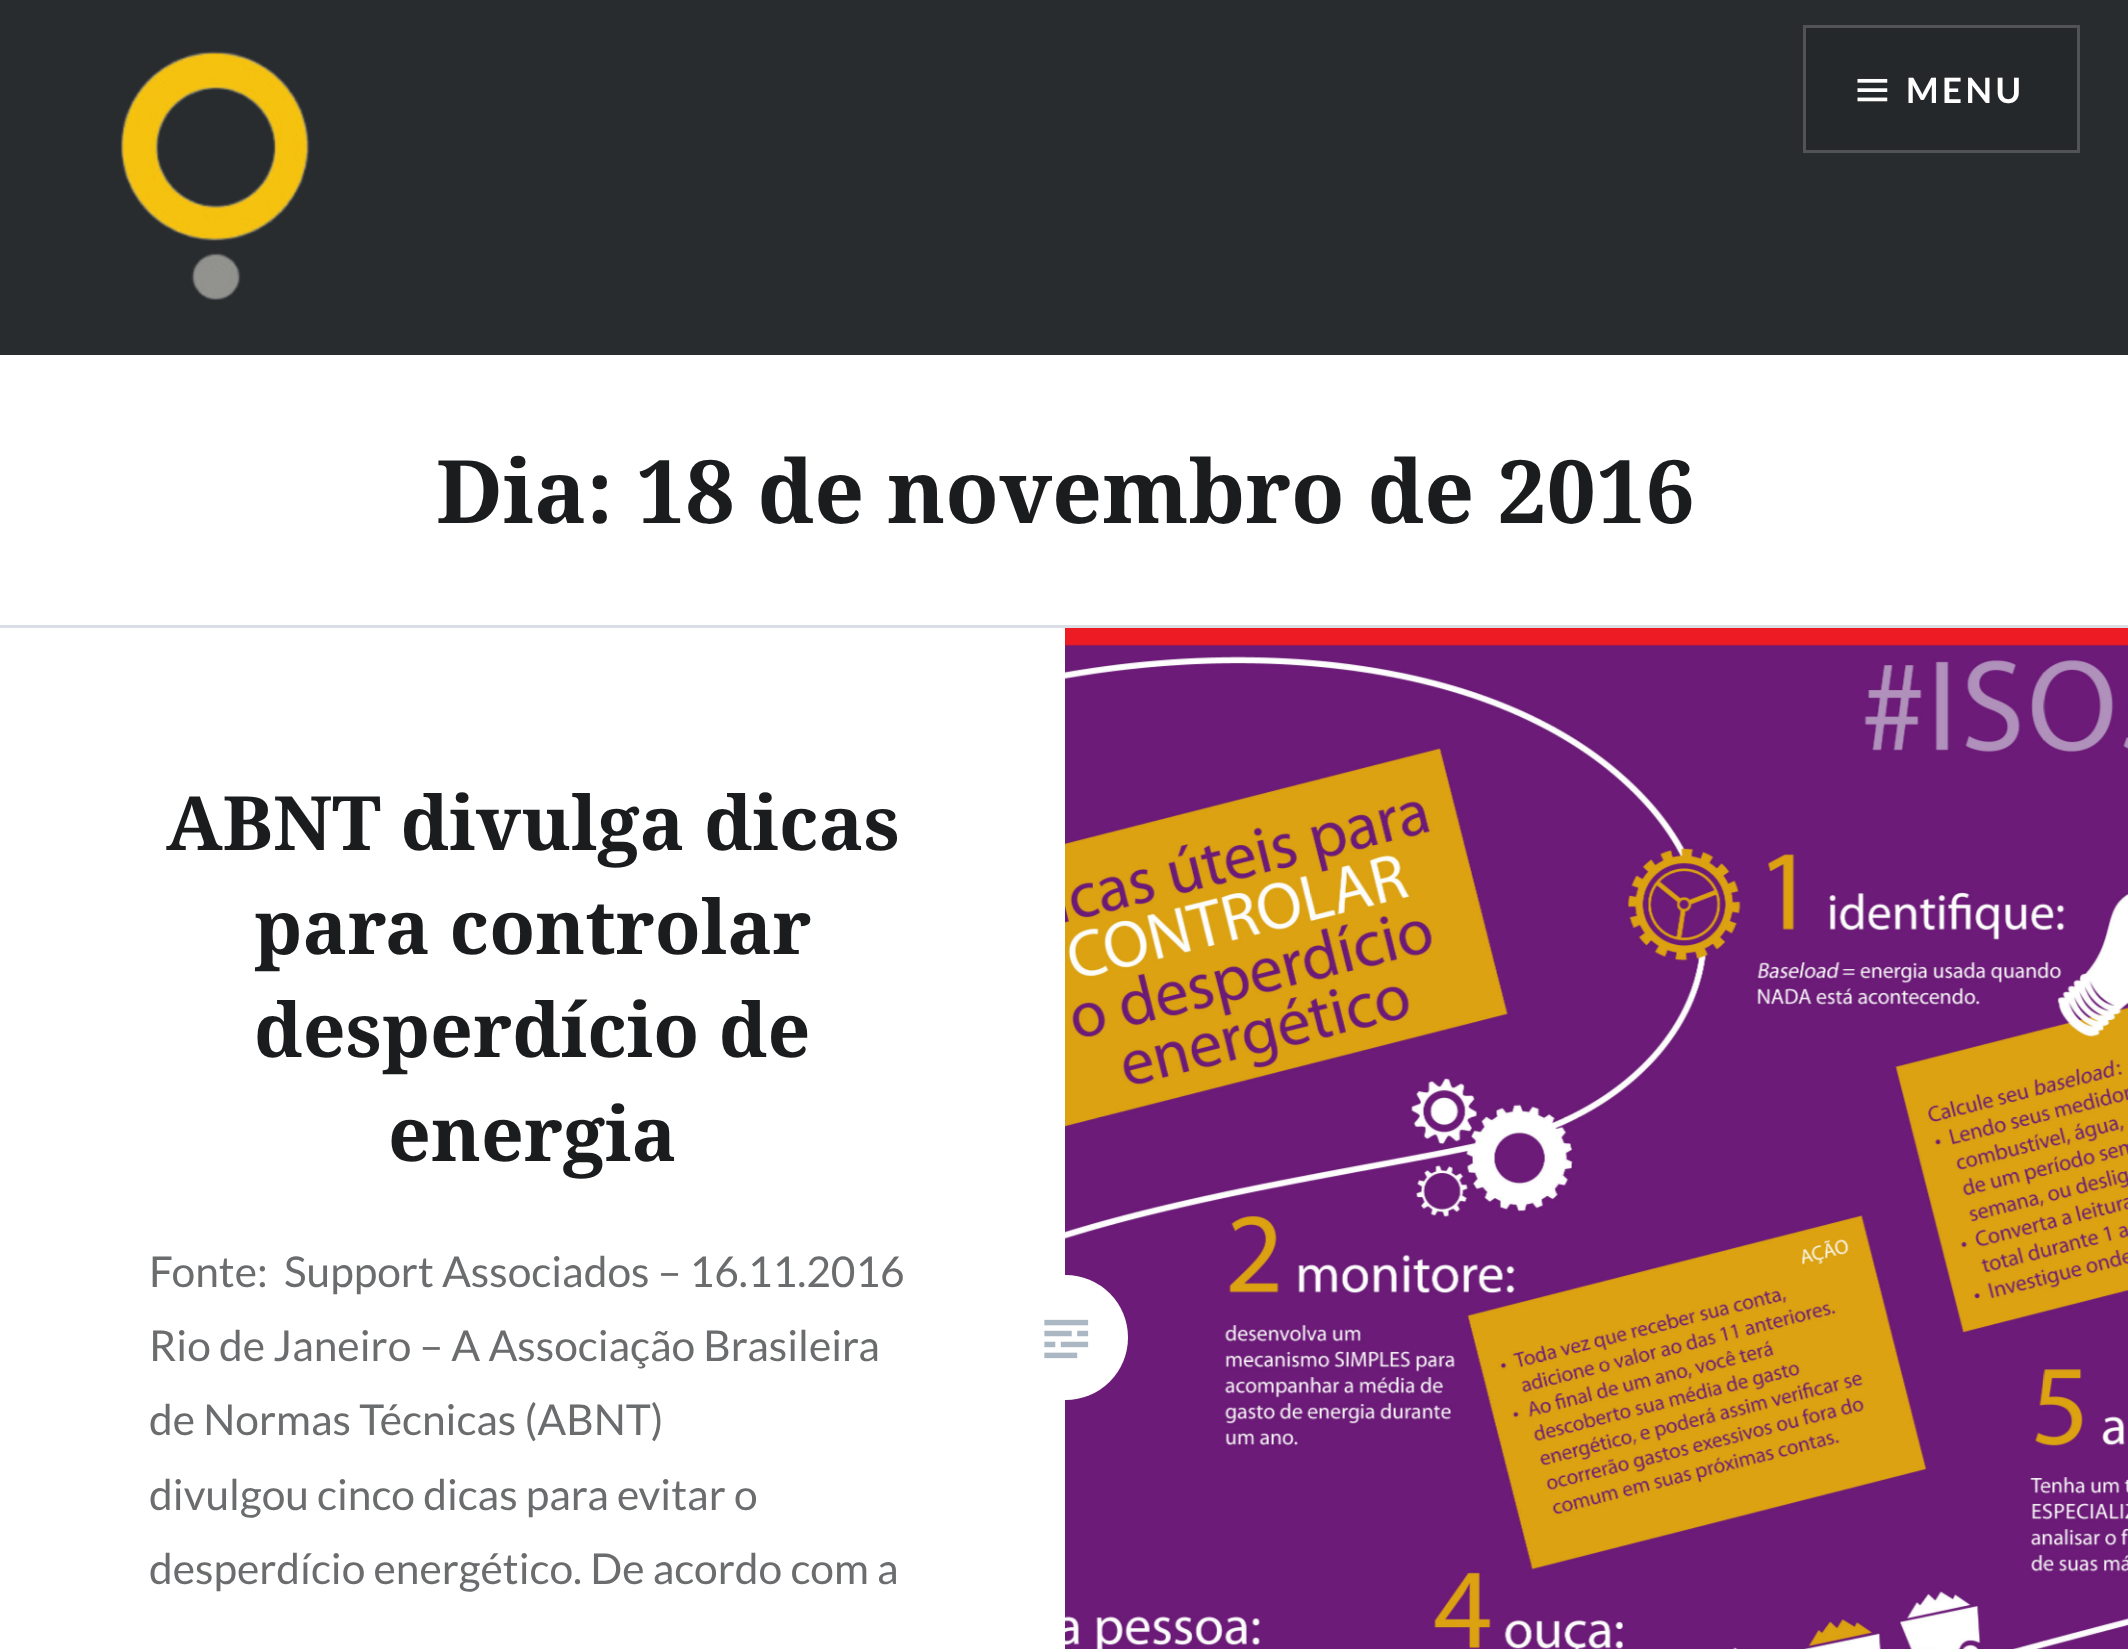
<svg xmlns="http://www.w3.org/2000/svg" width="2128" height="1649">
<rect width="100%" height="100%" fill="#fff"/>
<rect width="2128" height="355" fill="#292c2f"/>
<image x="120" y="51" width="190" height="249" href="media/1.png"/>
<rect x="1804.5" y="26.5" width="274" height="125" fill="#25282a" stroke="#515355" stroke-width="3"/>
<image x="1857" y="78" width="31" height="24" href="media/2.png"/>
<text x="1906" y="103" style="font-family:Lato;font-size:35px;font-weight:bold;letter-spacing:3.5px;fill:#fff">MENU</text>
<rect y="625" width="2128" height="3" fill="#d9dfe5"/>
<text x="436" y="523" style="font-family:Noto Serif;font-size:87.5px;font-weight:bold;fill:#1a1c1e">Dia: 18 de novembro de 2016</text>
<text x="166" y="850" style="font-family:Noto Serif;font-size:75px;font-weight:bold;fill:#1a1c1e">ABNT divulga dicas</text>
<text x="254" y="954" style="font-family:Noto Serif;font-size:75px;font-weight:bold;fill:#1a1c1e">para controlar</text>
<text x="254" y="1057" style="font-family:Noto Serif;font-size:75px;font-weight:bold;fill:#1a1c1e">desperdício de</text>
<text x="388" y="1161" style="font-family:Noto Serif;font-size:75px;font-weight:bold;fill:#1a1c1e">energia</text>
<text x="149" y="1287" style="font-family:Lato;font-size:42.5px;fill:#6a6c6e" xml:space="preserve">Fonte:  Support Associados – 16.11.2016</text>
<text x="149" y="1361" style="font-family:Lato;font-size:42.5px;fill:#6a6c6e">Rio de Janeiro – A Associação Brasileira</text>
<text x="149" y="1435" style="font-family:Lato;font-size:42.5px;fill:#6a6c6e">de Normas Técnicas (ABNT)</text>
<text x="149" y="1510" style="font-family:Lato;font-size:42.5px;fill:#6a6c6e">divulgou cinco dicas para evitar o</text>
<text x="149" y="1584" style="font-family:Lato;font-size:42.5px;fill:#6a6c6e">desperdício energético. De acordo com a</text>
<image x="1065" y="628" width="1063" height="1021" href="media/4.png"/>
<circle cx="1065.5" cy="1337.5" r="62.5" fill="#fff"/>
<image x="1044" y="1319" width="45" height="40" href="media/3.png"/>
</svg>
